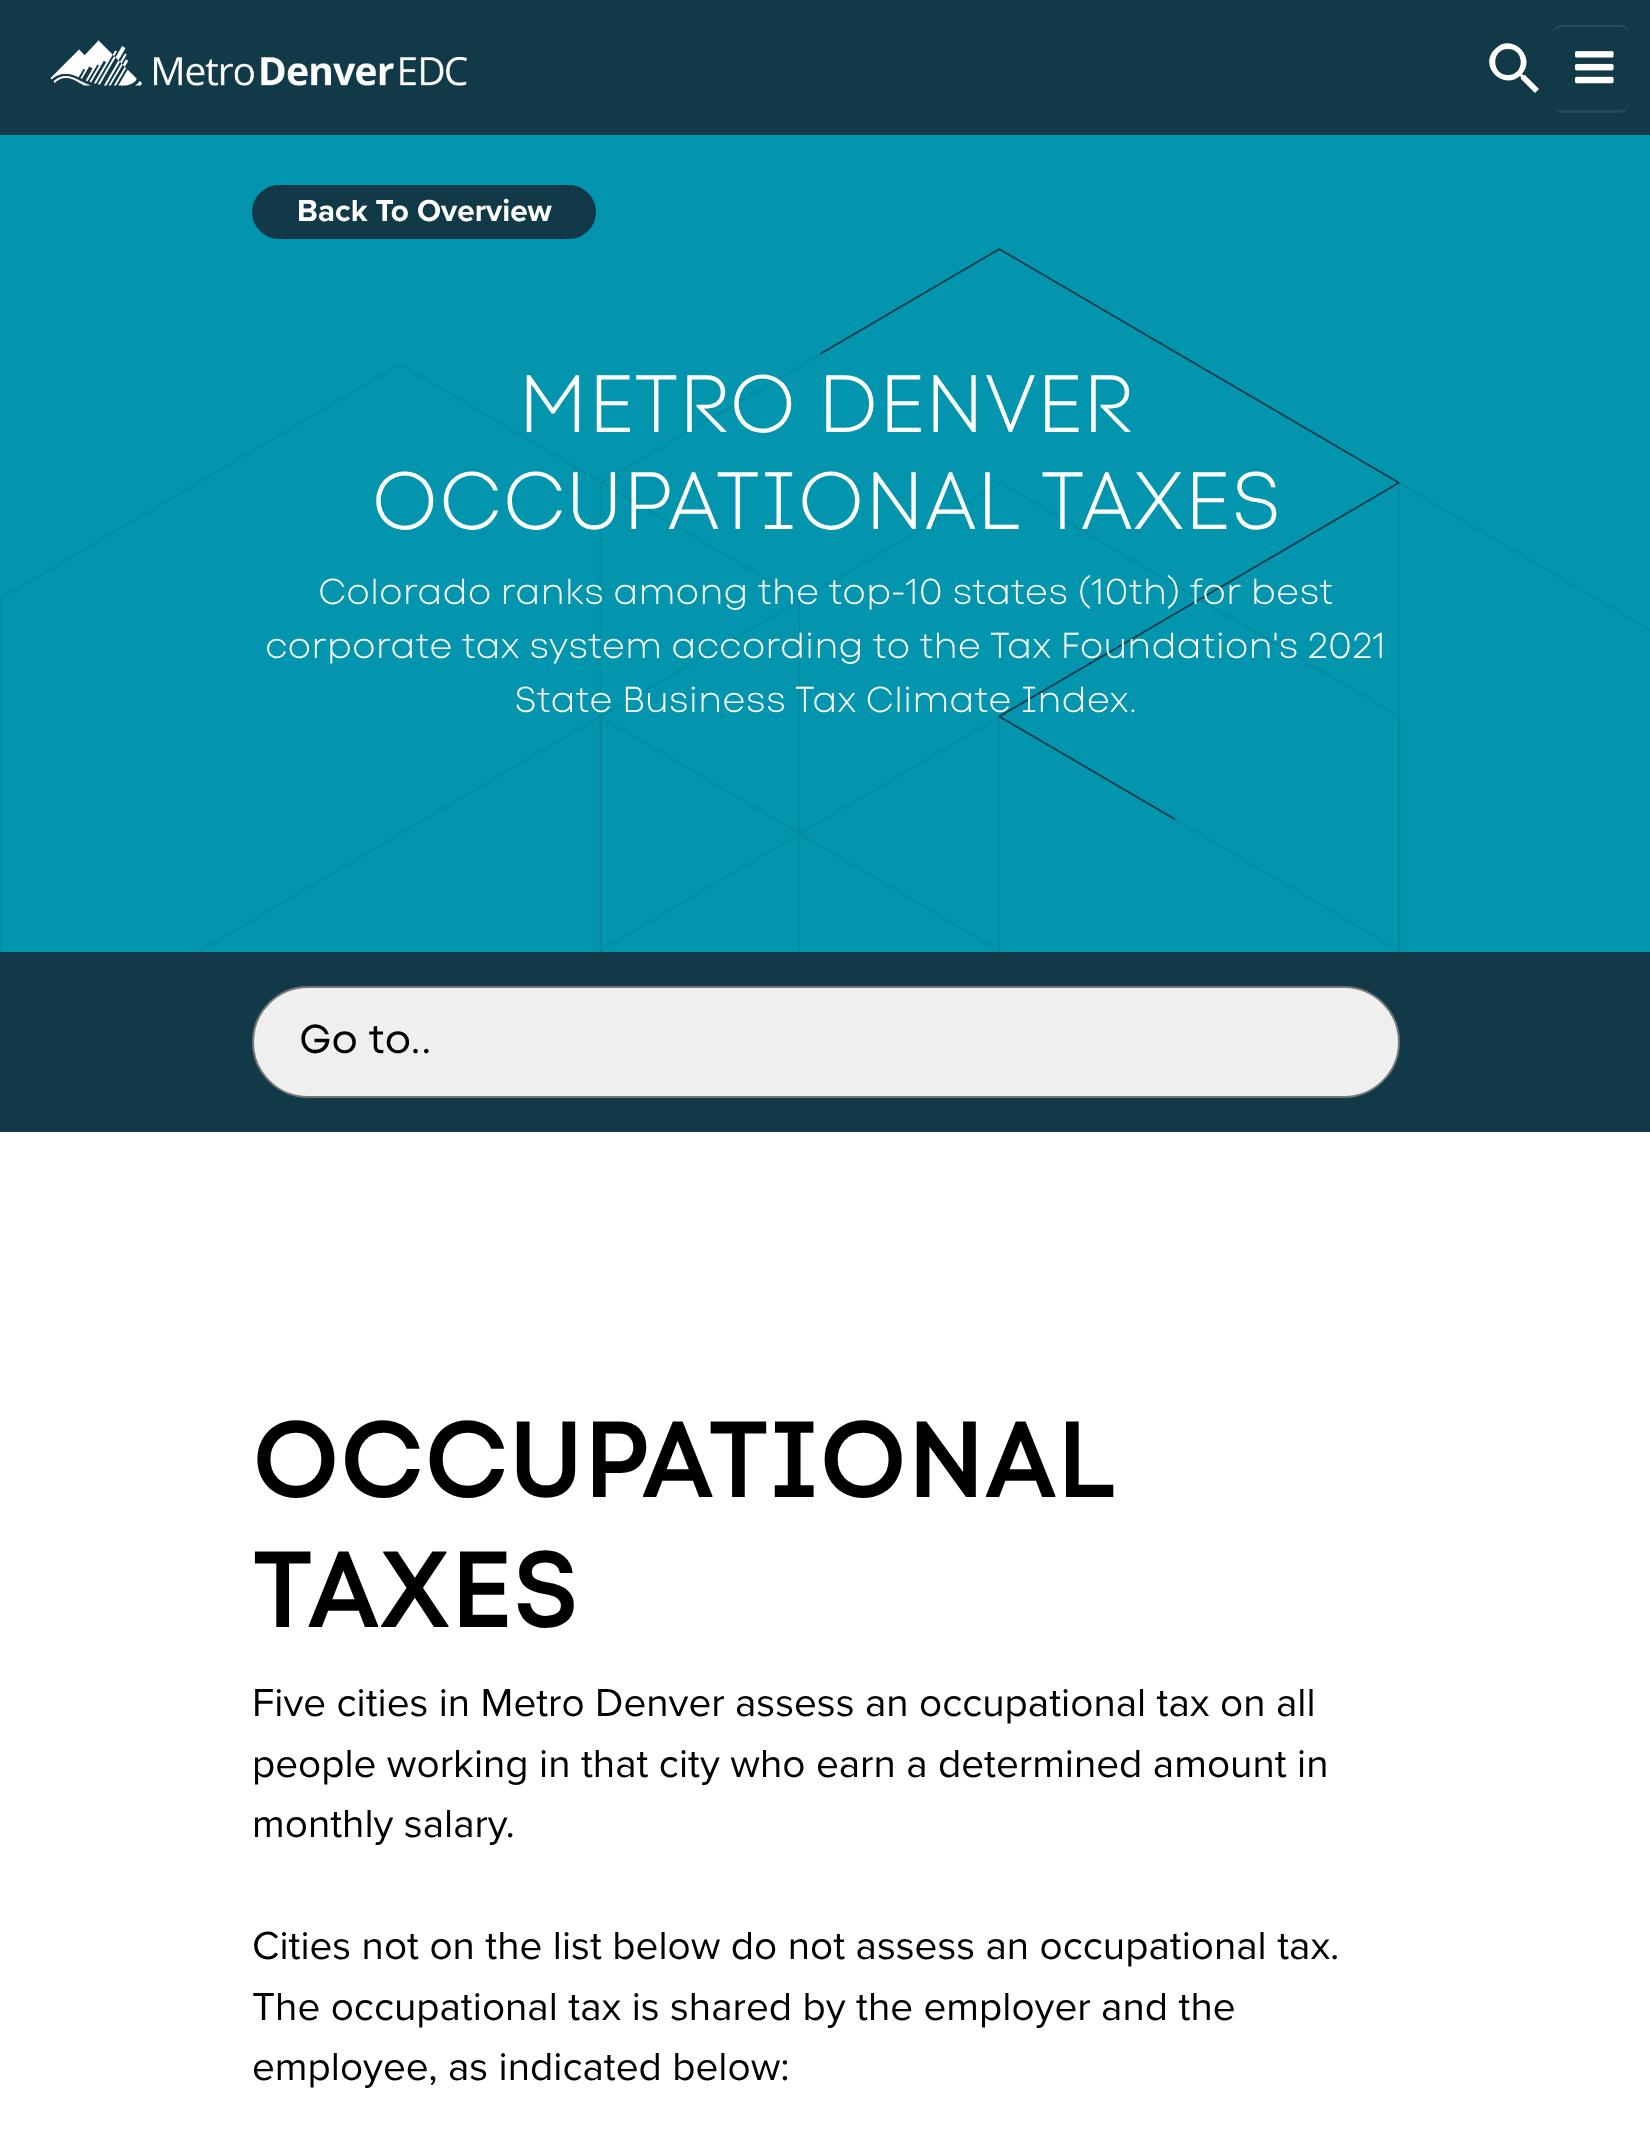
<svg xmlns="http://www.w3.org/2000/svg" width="1650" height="2143">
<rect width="100%" height="100%" fill="#fff"/>
<rect width="1650" height="135" fill="#113947"/>
<image x="50" y="40" width="418" height="46" href="media/1.png"/>
<path d="M1525 75h-2l-1-1c15-18-11-42-27-25c-17 16 7 42 25 27l1 1v2l14 14l4-4zm-17 0c-17 0-17-26 0-26c17 0 17 26 0 26z" fill="#fff"/>
<path d="M1553 104c0 5 4 9 9 9h58c5 0 9-4 9-9v-3c0 5-4 9-9 9h-58c-4 0-8-2-9-6z" fill="#234855"/>
<path d="M1562 27h58c5 0 9 4 9 9v-2c0-5-4-9-9-9h-58c-4 0-8 3-9 7c2-3 6-5 9-5z" fill="#294d59"/>
<image x="1575" y="51" width="39" height="33" href="media/2.png"/>
<rect y="135" width="1650" height="817" fill="#0395ad"/>
<image x="0" y="248" width="1650" height="704" href="media/3.png"/>
<rect x="252" y="185" width="344" height="54" rx="27" fill="#113947"/>
<text x="297" y="221" style="font-family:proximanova;font-size:31.5px;font-weight:bold;fill:#fff">Back To Overview</text>
<text x="518" y="432" style="font-family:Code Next;font-size:81px;font-weight:200;fill:#fff">METRO DENVER</text>
<text x="371" y="529" style="font-family:Code Next;font-size:81px;font-weight:200;fill:#fff">OCCUPATIONAL TAXES</text>
<text x="318" y="604" style="font-family:Code Next;font-size:36px;font-weight:200;fill:#fff">Colorado ranks among the top-10 states (10th) for best</text>
<text x="265" y="658" style="font-family:Code Next;font-size:36px;font-weight:200;fill:#fff">corporate tax system according to the Tax Foundation's 2021</text>
<text x="514" y="712" style="font-family:Code Next;font-size:36px;font-weight:200;fill:#fff">State Business Tax Climate Index.</text>
<rect y="952" width="1650" height="180" fill="#113947"/>
<rect x="253" y="987" width="1146" height="110" rx="55" fill="#efefef" stroke="#767676" stroke-width="2"/>
<text x="299" y="1053" style="font-family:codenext;font-size:40.5px;fill:#000">Go to..</text>
<text x="252" y="1497" style="font-family:Code Next;font-size:108px;font-weight:600;fill:#000">OCCUPATIONAL</text>
<text x="252" y="1627" style="font-family:Code Next;font-size:108px;font-weight:600;fill:#000">TAXES</text>
<text x="252" y="1716" style="font-family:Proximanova;font-size:40.5px;fill:#000">Five cities in Metro Denver assess an occupational tax on all</text>
<text x="252" y="1777" style="font-family:Proximanova;font-size:40.5px;fill:#000">people working in that city who earn a determined amount in</text>
<text x="252" y="1837" style="font-family:Proximanova;font-size:40.5px;fill:#000">monthly salary.</text>
<text x="252" y="1959" style="font-family:Proximanova;font-size:40.5px;fill:#000">Cities not on the list below do not assess an occupational tax.</text>
<text x="252" y="2020" style="font-family:Proximanova;font-size:40.5px;fill:#000">The occupational tax is shared by the employer and the</text>
<text x="252" y="2080" style="font-family:Proximanova;font-size:40.5px;fill:#000">employee, as indicated below:</text>
</svg>
